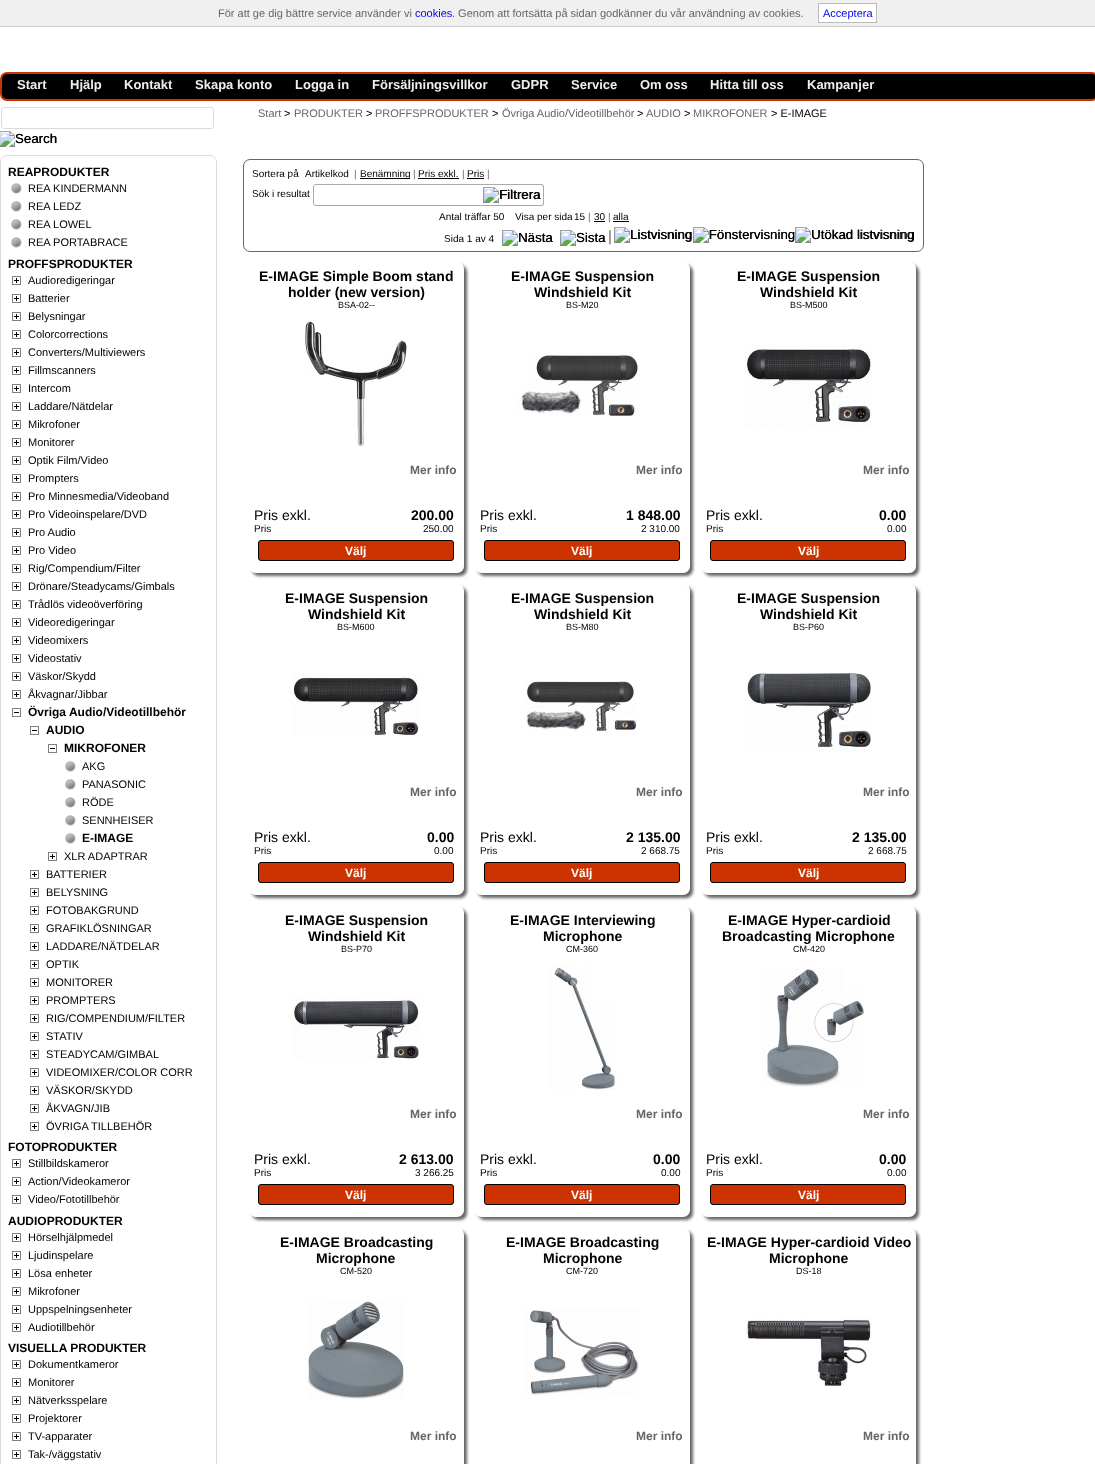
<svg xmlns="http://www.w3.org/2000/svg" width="1095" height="1464">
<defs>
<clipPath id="clip1"><path d="M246 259h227v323h-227zm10 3h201c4 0 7 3 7 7v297c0 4-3 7-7 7h-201c-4 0-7-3-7-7v-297c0-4 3-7 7-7z" clip-rule="evenodd"/></clipPath>
<clipPath id="clip2"><path d="M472 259h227v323h-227zm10 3h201c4 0 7 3 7 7v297c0 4-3 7-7 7h-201c-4 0-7-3-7-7v-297c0-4 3-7 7-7z" clip-rule="evenodd"/></clipPath>
<clipPath id="clip3"><path d="M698 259h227v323h-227zm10 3h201c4 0 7 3 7 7v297c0 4-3 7-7 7h-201c-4 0-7-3-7-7v-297c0-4 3-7 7-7z" clip-rule="evenodd"/></clipPath>
<clipPath id="clip4"><path d="M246 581h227v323h-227zm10 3h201c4 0 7 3 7 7v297c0 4-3 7-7 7h-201c-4 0-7-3-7-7v-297c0-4 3-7 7-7z" clip-rule="evenodd"/></clipPath>
<clipPath id="clip5"><path d="M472 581h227v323h-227zm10 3h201c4 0 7 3 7 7v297c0 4-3 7-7 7h-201c-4 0-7-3-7-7v-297c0-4 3-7 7-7z" clip-rule="evenodd"/></clipPath>
<clipPath id="clip6"><path d="M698 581h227v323h-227zm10 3h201c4 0 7 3 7 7v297c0 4-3 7-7 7h-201c-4 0-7-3-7-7v-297c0-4 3-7 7-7z" clip-rule="evenodd"/></clipPath>
<clipPath id="clip7"><path d="M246 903h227v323h-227zm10 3h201c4 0 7 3 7 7v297c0 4-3 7-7 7h-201c-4 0-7-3-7-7v-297c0-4 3-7 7-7z" clip-rule="evenodd"/></clipPath>
<clipPath id="clip8"><path d="M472 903h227v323h-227zm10 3h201c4 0 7 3 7 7v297c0 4-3 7-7 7h-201c-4 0-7-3-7-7v-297c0-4 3-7 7-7z" clip-rule="evenodd"/></clipPath>
<clipPath id="clip9"><path d="M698 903h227v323h-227zm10 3h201c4 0 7 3 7 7v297c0 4-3 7-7 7h-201c-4 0-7-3-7-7v-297c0-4 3-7 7-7z" clip-rule="evenodd"/></clipPath>
<clipPath id="clip10"><path d="M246 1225h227v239h-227zm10 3h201c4 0 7 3 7 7v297c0 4-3 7-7 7h-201c-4 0-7-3-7-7v-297c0-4 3-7 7-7z" clip-rule="evenodd"/></clipPath>
<clipPath id="clip11"><path d="M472 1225h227v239h-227zm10 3h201c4 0 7 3 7 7v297c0 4-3 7-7 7h-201c-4 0-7-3-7-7v-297c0-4 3-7 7-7z" clip-rule="evenodd"/></clipPath>
<clipPath id="clip12"><path d="M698 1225h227v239h-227zm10 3h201c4 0 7 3 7 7v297c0 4-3 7-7 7h-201c-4 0-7-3-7-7v-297c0-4 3-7 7-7z" clip-rule="evenodd"/></clipPath>
</defs>
<rect width="100%" height="100%" fill="#fff"/>
<rect width="1095" height="26" fill="#f0f0f0"/>
<rect y="26" width="1095" height="1" fill="#ccc"/>
<text x="218" y="17" style="font-family:Liberation Sans;font-size:11px;fill:#666">För att ge dig bättre service använder vi</text>
<text x="415" y="17" style="font-family:Liberation Sans;font-size:11px;fill:#00e">cookies</text>
<text x="452" y="17" style="font-family:Liberation Sans;font-size:11px;fill:#666">. Genom att fortsätta på sidan godkänner du vår användning av cookies.</text>
<rect x="818.5" y="3.5" width="58" height="19" fill="#fff" stroke="#bbb"/>
<text x="823" y="17" style="font-family:Liberation Sans;font-size:11px;fill:#00e">Acceptera</text>
<rect x="1" y="73" width="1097" height="27" rx="6" fill="#000" stroke="#c30" stroke-width="2"/>
<text x="17" y="89" style="font-family:Liberation Sans;font-size:13px;font-weight:bold;fill:#efefef">Start</text>
<text x="70" y="89" style="font-family:Liberation Sans;font-size:13px;font-weight:bold;fill:#efefef">Hjälp</text>
<text x="124" y="89" style="font-family:Liberation Sans;font-size:13px;font-weight:bold;fill:#efefef">Kontakt</text>
<text x="195" y="89" style="font-family:Liberation Sans;font-size:13px;font-weight:bold;fill:#efefef">Skapa konto</text>
<text x="295" y="89" style="font-family:Liberation Sans;font-size:13px;font-weight:bold;fill:#efefef">Logga in</text>
<text x="372" y="89" style="font-family:Liberation Sans;font-size:13px;font-weight:bold;fill:#efefef">Försäljningsvillkor</text>
<text x="511" y="89" style="font-family:Liberation Sans;font-size:13px;font-weight:bold;fill:#efefef">GDPR</text>
<text x="571" y="89" style="font-family:Liberation Sans;font-size:13px;font-weight:bold;fill:#efefef">Service</text>
<text x="640" y="89" style="font-family:Liberation Sans;font-size:13px;font-weight:bold;fill:#efefef">Om oss</text>
<text x="710" y="89" style="font-family:Liberation Sans;font-size:13px;font-weight:bold;fill:#efefef">Hitta till oss</text>
<text x="807" y="89" style="font-family:Liberation Sans;font-size:13px;font-weight:bold;fill:#efefef">Kampanjer</text>
<rect x="1.5" y="107.5" width="212" height="21" rx="2.5" fill="none" stroke="#dbdbdb"/>
<image x="0" y="131" width="57" height="16" href="media/1.png"/>
<text x="15" y="143" style="font-family:Liberation Sans;font-size:13.25px;fill:#000">Search</text>
<rect x="0.5" y="155.5" width="216" height="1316" rx="6.5" fill="none" stroke="#dbdbdb"/>
<text x="8" y="176" style="font-family:Liberation Sans;font-size:12px;font-weight:bold;fill:#000">REAPRODUKTER</text>
<image x="11" y="183" width="11" height="11" href="media/2.png"/>
<text x="28" y="192" style="font-family:Liberation Sans;font-size:11px;fill:#000">REA KINDERMANN</text>
<image x="11" y="201" width="11" height="11" href="media/2.png"/>
<text x="28" y="210" style="font-family:Liberation Sans;font-size:11px;fill:#000">REA LEDZ</text>
<image x="11" y="219" width="11" height="11" href="media/2.png"/>
<text x="28" y="228" style="font-family:Liberation Sans;font-size:11px;fill:#000">REA LOWEL</text>
<image x="11" y="237" width="11" height="11" href="media/2.png"/>
<text x="28" y="246" style="font-family:Liberation Sans;font-size:11px;fill:#000">REA PORTABRACE</text>
<text x="8" y="268" style="font-family:Liberation Sans;font-size:12px;font-weight:bold;fill:#000">PROFFSPRODUKTER</text>
<image x="12" y="276" width="9" height="9" href="media/3.png"/>
<text x="28" y="284" style="font-family:Liberation Sans;font-size:11px;fill:#000">Audioredigeringar</text>
<image x="12" y="294" width="9" height="9" href="media/3.png"/>
<text x="28" y="302" style="font-family:Liberation Sans;font-size:11px;fill:#000">Batterier</text>
<image x="12" y="312" width="9" height="9" href="media/3.png"/>
<text x="28" y="320" style="font-family:Liberation Sans;font-size:11px;fill:#000">Belysningar</text>
<image x="12" y="330" width="9" height="9" href="media/3.png"/>
<text x="28" y="338" style="font-family:Liberation Sans;font-size:11px;fill:#000">Colorcorrections</text>
<image x="12" y="348" width="9" height="9" href="media/3.png"/>
<text x="28" y="356" style="font-family:Liberation Sans;font-size:11px;fill:#000">Converters/Multiviewers</text>
<image x="12" y="366" width="9" height="9" href="media/3.png"/>
<text x="28" y="374" style="font-family:Liberation Sans;font-size:11px;fill:#000">Fillmscanners</text>
<image x="12" y="384" width="9" height="9" href="media/3.png"/>
<text x="28" y="392" style="font-family:Liberation Sans;font-size:11px;fill:#000">Intercom</text>
<image x="12" y="402" width="9" height="9" href="media/3.png"/>
<text x="28" y="410" style="font-family:Liberation Sans;font-size:11px;fill:#000">Laddare/Nätdelar</text>
<image x="12" y="420" width="9" height="9" href="media/3.png"/>
<text x="28" y="428" style="font-family:Liberation Sans;font-size:11px;fill:#000">Mikrofoner</text>
<image x="12" y="438" width="9" height="9" href="media/3.png"/>
<text x="28" y="446" style="font-family:Liberation Sans;font-size:11px;fill:#000">Monitorer</text>
<image x="12" y="456" width="9" height="9" href="media/3.png"/>
<text x="28" y="464" style="font-family:Liberation Sans;font-size:11px;fill:#000">Optik Film/Video</text>
<image x="12" y="474" width="9" height="9" href="media/3.png"/>
<text x="28" y="482" style="font-family:Liberation Sans;font-size:11px;fill:#000">Prompters</text>
<image x="12" y="492" width="9" height="9" href="media/3.png"/>
<text x="28" y="500" style="font-family:Liberation Sans;font-size:11px;fill:#000">Pro Minnesmedia/Videoband</text>
<image x="12" y="510" width="9" height="9" href="media/3.png"/>
<text x="28" y="518" style="font-family:Liberation Sans;font-size:11px;fill:#000">Pro Videoinspelare/DVD</text>
<image x="12" y="528" width="9" height="9" href="media/3.png"/>
<text x="28" y="536" style="font-family:Liberation Sans;font-size:11px;fill:#000">Pro Audio</text>
<image x="12" y="546" width="9" height="9" href="media/3.png"/>
<text x="28" y="554" style="font-family:Liberation Sans;font-size:11px;fill:#000">Pro Video</text>
<image x="12" y="564" width="9" height="9" href="media/3.png"/>
<text x="28" y="572" style="font-family:Liberation Sans;font-size:11px;fill:#000">Rig/Compendium/Filter</text>
<image x="12" y="582" width="9" height="9" href="media/3.png"/>
<text x="28" y="590" style="font-family:Liberation Sans;font-size:11px;fill:#000">Drönare/Steadycams/Gimbals</text>
<image x="12" y="600" width="9" height="9" href="media/3.png"/>
<text x="28" y="608" style="font-family:Liberation Sans;font-size:11px;fill:#000">Trådlös videoöverföring</text>
<image x="12" y="618" width="9" height="9" href="media/3.png"/>
<text x="28" y="626" style="font-family:Liberation Sans;font-size:11px;fill:#000">Videoredigeringar</text>
<image x="12" y="636" width="9" height="9" href="media/3.png"/>
<text x="28" y="644" style="font-family:Liberation Sans;font-size:11px;fill:#000">Videomixers</text>
<image x="12" y="654" width="9" height="9" href="media/3.png"/>
<text x="28" y="662" style="font-family:Liberation Sans;font-size:11px;fill:#000">Videostativ</text>
<image x="12" y="672" width="9" height="9" href="media/3.png"/>
<text x="28" y="680" style="font-family:Liberation Sans;font-size:11px;fill:#000">Väskor/Skydd</text>
<image x="12" y="690" width="9" height="9" href="media/3.png"/>
<text x="28" y="698" style="font-family:Liberation Sans;font-size:11px;fill:#000">Åkvagnar/Jibbar</text>
<image x="12" y="708" width="9" height="9" href="media/4.png"/>
<text x="28" y="716" style="font-family:Liberation Sans;font-size:12px;font-weight:bold;fill:#000">Övriga Audio/Videotillbehör</text>
<image x="30" y="726" width="9" height="9" href="media/4.png"/>
<text x="46" y="734" style="font-family:Liberation Sans;font-size:12px;font-weight:bold;fill:#000">AUDIO</text>
<image x="48" y="744" width="9" height="9" href="media/4.png"/>
<text x="64" y="752" style="font-family:Liberation Sans;font-size:12px;font-weight:bold;fill:#000">MIKROFONER</text>
<image x="65" y="761" width="11" height="11" href="media/2.png"/>
<text x="82" y="770" style="font-family:Liberation Sans;font-size:11px;fill:#000">AKG</text>
<image x="65" y="779" width="11" height="11" href="media/2.png"/>
<text x="82" y="788" style="font-family:Liberation Sans;font-size:11px;fill:#000">PANASONIC</text>
<image x="65" y="797" width="11" height="11" href="media/2.png"/>
<text x="82" y="806" style="font-family:Liberation Sans;font-size:11px;fill:#000">RÖDE</text>
<image x="65" y="815" width="11" height="11" href="media/2.png"/>
<text x="82" y="824" style="font-family:Liberation Sans;font-size:11px;fill:#000">SENNHEISER</text>
<image x="65" y="833" width="11" height="11" href="media/2.png"/>
<text x="82" y="842" style="font-family:Liberation Sans;font-size:12px;font-weight:bold;fill:#000">E-IMAGE</text>
<image x="48" y="852" width="9" height="9" href="media/3.png"/>
<text x="64" y="860" style="font-family:Liberation Sans;font-size:11px;fill:#000">XLR ADAPTRAR</text>
<image x="30" y="870" width="9" height="9" href="media/3.png"/>
<text x="46" y="878" style="font-family:Liberation Sans;font-size:11px;fill:#000">BATTERIER</text>
<image x="30" y="888" width="9" height="9" href="media/3.png"/>
<text x="46" y="896" style="font-family:Liberation Sans;font-size:11px;fill:#000">BELYSNING</text>
<image x="30" y="906" width="9" height="9" href="media/3.png"/>
<text x="46" y="914" style="font-family:Liberation Sans;font-size:11px;fill:#000">FOTOBAKGRUND</text>
<image x="30" y="924" width="9" height="9" href="media/3.png"/>
<text x="46" y="932" style="font-family:Liberation Sans;font-size:11px;fill:#000">GRAFIKLÖSNINGAR</text>
<image x="30" y="942" width="9" height="9" href="media/3.png"/>
<text x="46" y="950" style="font-family:Liberation Sans;font-size:11px;fill:#000">LADDARE/NÄTDELAR</text>
<image x="30" y="960" width="9" height="9" href="media/3.png"/>
<text x="46" y="968" style="font-family:Liberation Sans;font-size:11px;fill:#000">OPTIK</text>
<image x="30" y="978" width="9" height="9" href="media/3.png"/>
<text x="46" y="986" style="font-family:Liberation Sans;font-size:11px;fill:#000">MONITORER</text>
<image x="30" y="996" width="9" height="9" href="media/3.png"/>
<text x="46" y="1004" style="font-family:Liberation Sans;font-size:11px;fill:#000">PROMPTERS</text>
<image x="30" y="1014" width="9" height="9" href="media/3.png"/>
<text x="46" y="1022" style="font-family:Liberation Sans;font-size:11px;fill:#000">RIG/COMPENDIUM/FILTER</text>
<image x="30" y="1032" width="9" height="9" href="media/3.png"/>
<text x="46" y="1040" style="font-family:Liberation Sans;font-size:11px;fill:#000">STATIV</text>
<image x="30" y="1050" width="9" height="9" href="media/3.png"/>
<text x="46" y="1058" style="font-family:Liberation Sans;font-size:11px;fill:#000">STEADYCAM/GIMBAL</text>
<image x="30" y="1068" width="9" height="9" href="media/3.png"/>
<text x="46" y="1076" style="font-family:Liberation Sans;font-size:11px;fill:#000">VIDEOMIXER/COLOR CORR</text>
<image x="30" y="1086" width="9" height="9" href="media/3.png"/>
<text x="46" y="1094" style="font-family:Liberation Sans;font-size:11px;fill:#000">VÄSKOR/SKYDD</text>
<image x="30" y="1104" width="9" height="9" href="media/3.png"/>
<text x="46" y="1112" style="font-family:Liberation Sans;font-size:11px;fill:#000">ÅKVAGN/JIB</text>
<image x="30" y="1122" width="9" height="9" href="media/3.png"/>
<text x="46" y="1130" style="font-family:Liberation Sans;font-size:11px;fill:#000">ÖVRIGA TILLBEHÖR</text>
<text x="8" y="1151" style="font-family:Liberation Sans;font-size:12px;font-weight:bold;fill:#000">FOTOPRODUKTER</text>
<image x="12" y="1159" width="9" height="9" href="media/3.png"/>
<text x="28" y="1167" style="font-family:Liberation Sans;font-size:11px;fill:#000">Stillbildskameror</text>
<image x="12" y="1177" width="9" height="9" href="media/3.png"/>
<text x="28" y="1185" style="font-family:Liberation Sans;font-size:11px;fill:#000">Action/Videokameror</text>
<image x="12" y="1195" width="9" height="9" href="media/3.png"/>
<text x="28" y="1203" style="font-family:Liberation Sans;font-size:11px;fill:#000">Video/Fototillbehör</text>
<text x="8" y="1225" style="font-family:Liberation Sans;font-size:12px;font-weight:bold;fill:#000">AUDIOPRODUKTER</text>
<image x="12" y="1233" width="9" height="9" href="media/3.png"/>
<text x="28" y="1241" style="font-family:Liberation Sans;font-size:11px;fill:#000">Hörselhjälpmedel</text>
<image x="12" y="1251" width="9" height="9" href="media/3.png"/>
<text x="28" y="1259" style="font-family:Liberation Sans;font-size:11px;fill:#000">Ljudinspelare</text>
<image x="12" y="1269" width="9" height="9" href="media/3.png"/>
<text x="28" y="1277" style="font-family:Liberation Sans;font-size:11px;fill:#000">Lösa enheter</text>
<image x="12" y="1287" width="9" height="9" href="media/3.png"/>
<text x="28" y="1295" style="font-family:Liberation Sans;font-size:11px;fill:#000">Mikrofoner</text>
<image x="12" y="1305" width="9" height="9" href="media/3.png"/>
<text x="28" y="1313" style="font-family:Liberation Sans;font-size:11px;fill:#000">Uppspelningsenheter</text>
<image x="12" y="1323" width="9" height="9" href="media/3.png"/>
<text x="28" y="1331" style="font-family:Liberation Sans;font-size:11px;fill:#000">Audiotillbehör</text>
<text x="8" y="1352" style="font-family:Liberation Sans;font-size:12px;font-weight:bold;fill:#000">VISUELLA PRODUKTER</text>
<image x="12" y="1360" width="9" height="9" href="media/3.png"/>
<text x="28" y="1368" style="font-family:Liberation Sans;font-size:11px;fill:#000">Dokumentkameror</text>
<image x="12" y="1378" width="9" height="9" href="media/3.png"/>
<text x="28" y="1386" style="font-family:Liberation Sans;font-size:11px;fill:#000">Monitorer</text>
<image x="12" y="1396" width="9" height="9" href="media/3.png"/>
<text x="28" y="1404" style="font-family:Liberation Sans;font-size:11px;fill:#000">Nätverksspelare</text>
<image x="12" y="1414" width="9" height="9" href="media/3.png"/>
<text x="28" y="1422" style="font-family:Liberation Sans;font-size:11px;fill:#000">Projektorer</text>
<image x="12" y="1432" width="9" height="9" href="media/3.png"/>
<text x="28" y="1440" style="font-family:Liberation Sans;font-size:11px;fill:#000">TV-apparater</text>
<image x="12" y="1450" width="9" height="9" href="media/3.png"/>
<text x="28" y="1458" style="font-family:Liberation Sans;font-size:11px;fill:#000">Tak-/väggstativ</text>
<text x="258" y="117" style="font-family:Liberation Sans;font-size:11px;fill:#666">Start</text>
<text x="284" y="117" style="font-family:Liberation Sans;font-size:11px;fill:#000">&gt;</text>
<text x="294" y="117" style="font-family:Liberation Sans;font-size:11px;fill:#666">PRODUKTER</text>
<text x="366" y="117" style="font-family:Liberation Sans;font-size:11px;fill:#000">&gt;</text>
<text x="375" y="117" style="font-family:Liberation Sans;font-size:11px;fill:#666">PROFFSPRODUKTER</text>
<text x="492" y="117" style="font-family:Liberation Sans;font-size:11px;fill:#000">&gt;</text>
<text x="502" y="117" style="font-family:Liberation Sans;font-size:11px;fill:#666">Övriga Audio/Videotillbehör</text>
<text x="637" y="117" style="font-family:Liberation Sans;font-size:11px;fill:#000">&gt;</text>
<text x="646" y="117" style="font-family:Liberation Sans;font-size:11px;fill:#666">AUDIO</text>
<text x="684" y="117" style="font-family:Liberation Sans;font-size:11px;fill:#000">&gt;</text>
<text x="693" y="117" style="font-family:Liberation Sans;font-size:11px;fill:#666">MIKROFONER</text>
<text x="771" y="117" style="font-family:Liberation Sans;font-size:11px;fill:#000">&gt; E-IMAGE</text>
<rect x="243.5" y="159.5" width="680" height="92" rx="6.5" fill="none" stroke="#666"/>
<text x="252" y="177" style="font-family:Liberation Sans;font-size:10px;fill:#000">Sortera på</text>
<text x="305" y="177" style="font-family:Liberation Sans;font-size:10px;fill:#000">Artikelkod</text>
<text x="354" y="177" style="font-family:Liberation Sans;font-size:10px;fill:#666">|</text>
<rect x="360" y="178" width="50" height="1" fill="#000"/>
<text x="360" y="177" style="font-family:Liberation Sans;font-size:10px;fill:#000">Benämning</text>
<text x="413" y="177" style="font-family:Liberation Sans;font-size:10px;fill:#666">|</text>
<text x="418" y="177" style="font-family:Liberation Sans;font-size:10px;fill:#000">Pris exkl.</text>
<rect x="418" y="178" width="41" height="1" fill="#000"/>
<text x="462" y="177" style="font-family:Liberation Sans;font-size:10px;fill:#666">|</text>
<text x="467" y="177" style="font-family:Liberation Sans;font-size:10px;fill:#000">Pris</text>
<rect x="467" y="178" width="17" height="1" fill="#000"/>
<text x="487" y="177" style="font-family:Liberation Sans;font-size:10px;fill:#666">|</text>
<text x="252" y="197" style="font-family:Liberation Sans;font-size:10px;fill:#000">Sök i resultat</text>
<path d="M316 184.5h162.5v21h-162.5c-1.5 0-2.5-1-2.5-2.5v-16c0-1.5 1-2.5 2.5-2.5z" fill="none" stroke="#aaa"/>
<path d="M478 184h63c1.5 0 3 1.5 3 3v16c0 1.5-1.5 3-3 3h-63z" fill="#fff"/>
<path d="M478 184h63c2 0 3 1 3 3v16c0 2-1 3-3 3h-63zm0 1h63c1 0 2 1 2 2v16c0 1-1 2-2 2h-63z" fill="#aaa" fill-rule="evenodd"/>
<image x="483" y="187" width="58" height="16" href="media/5.png"/>
<text x="499" y="199" style="font-family:Liberation Sans;font-size:13.25px;fill:#000">Filtrera</text>
<text x="439" y="220" style="font-family:Liberation Sans;font-size:10px;fill:#000">Antal träffar 50</text>
<text x="515" y="220" style="font-family:Liberation Sans;font-size:10px;fill:#000">Visa per sida</text>
<text x="574" y="220" style="font-family:Liberation Sans;font-size:10px;fill:#000">15</text>
<text x="588" y="220" style="font-family:Liberation Sans;font-size:10px;fill:#666">|</text>
<text x="594" y="220" style="font-family:Liberation Sans;font-size:10px;fill:#000">30</text>
<rect x="594" y="221" width="11" height="1" fill="#000"/>
<text x="608" y="220" style="font-family:Liberation Sans;font-size:10px;fill:#666">|</text>
<text x="613" y="220" style="font-family:Liberation Sans;font-size:10px;fill:#000">alla</text>
<rect x="613" y="221" width="16" height="1" fill="#000"/>
<text x="444" y="242" style="font-family:Liberation Sans;font-size:10px;fill:#000">Sida 1 av 4</text>
<image x="502" y="230" width="51" height="16" href="media/6.png"/>
<text x="518" y="242" style="font-family:Liberation Sans;font-size:13.25px;fill:#000">Nästa</text>
<image x="560" y="230" width="46" height="16" href="media/7.png"/>
<text x="576" y="242" style="font-family:Liberation Sans;font-size:13.25px;fill:#000">Sista</text>
<text x="608" y="241" style="font-family:Liberation Sans;font-size:15px;fill:#666">|</text>
<image x="614" y="227" width="78" height="16" href="media/8.png"/>
<text x="630" y="239" style="font-family:Liberation Sans;font-size:13.25px;fill:#000">Listvisning</text>
<image x="693" y="227" width="102" height="16" href="media/9.png"/>
<text x="709" y="239" style="font-family:Liberation Sans;font-size:13.25px;fill:#000">Fönstervisning</text>
<image x="795" y="227" width="119" height="16" href="media/10.png"/>
<text x="811" y="239" style="font-family:Liberation Sans;font-size:13.25px;fill:#000">Utökad listvisning</text>
<g clip-path="url(#clip1)">
<rect x="252" y="265" width="215" height="311" rx="7" fill="#666" filter="blur(1.5px)"/>
</g>
<text x="259" y="281" style="font-family:Liberation Sans;font-size:14px;font-weight:bold;fill:#000">E-IMAGE Simple Boom stand</text>
<text x="288" y="297" style="font-family:Liberation Sans;font-size:14px;font-weight:bold;fill:#000">holder (new version)</text>
<text x="338" y="308" style="font-family:Liberation Sans;font-size:9px;fill:#000">BSA-02--</text>
<image x="305" y="321" width="102" height="125" href="media/11.png"/>
<text x="410" y="474" style="font-family:Liberation Sans;font-size:12px;font-weight:bold;fill:#666">Mer info</text>
<text x="254" y="520" style="font-family:Liberation Sans;font-size:14px;fill:#000">Pris exkl.</text>
<text x="411" y="520" style="font-family:Liberation Sans;font-size:14px;font-weight:bold;fill:#000">200.00</text>
<text x="254" y="532" style="font-family:Liberation Sans;font-size:10px;fill:#000">Pris</text>
<text x="423" y="532" style="font-family:Liberation Sans;font-size:10px;fill:#000">250.00</text>
<rect x="258.5" y="540.5" width="195" height="20" rx="2.5" fill="#c30" stroke="#000"/>
<text x="345" y="555" style="font-family:Liberation Sans;font-size:12px;font-weight:bold;fill:#fff">Välj</text>
<g clip-path="url(#clip2)">
<rect x="478" y="265" width="215" height="311" rx="7" fill="#666" filter="blur(1.5px)"/>
</g>
<text x="511" y="281" style="font-family:Liberation Sans;font-size:14px;font-weight:bold;fill:#000">E-IMAGE Suspension</text>
<text x="534" y="297" style="font-family:Liberation Sans;font-size:14px;font-weight:bold;fill:#000">Windshield Kit</text>
<text x="566" y="308" style="font-family:Liberation Sans;font-size:9px;fill:#000">BS-M20</text>
<image x="518" y="351" width="122" height="66" href="media/12.png"/>
<text x="636" y="474" style="font-family:Liberation Sans;font-size:12px;font-weight:bold;fill:#666">Mer info</text>
<text x="480" y="520" style="font-family:Liberation Sans;font-size:14px;fill:#000">Pris exkl.</text>
<text x="626" y="520" style="font-family:Liberation Sans;font-size:14px;font-weight:bold;fill:#000">1 848.00</text>
<text x="480" y="532" style="font-family:Liberation Sans;font-size:10px;fill:#000">Pris</text>
<text x="641" y="532" style="font-family:Liberation Sans;font-size:10px;fill:#000">2 310.00</text>
<rect x="484.5" y="540.5" width="195" height="20" rx="2.5" fill="#c30" stroke="#000"/>
<text x="571" y="555" style="font-family:Liberation Sans;font-size:12px;font-weight:bold;fill:#fff">Välj</text>
<g clip-path="url(#clip3)">
<rect x="704" y="265" width="215" height="311" rx="7" fill="#666" filter="blur(1.5px)"/>
</g>
<text x="737" y="281" style="font-family:Liberation Sans;font-size:14px;font-weight:bold;fill:#000">E-IMAGE Suspension</text>
<text x="760" y="297" style="font-family:Liberation Sans;font-size:14px;font-weight:bold;fill:#000">Windshield Kit</text>
<text x="790" y="308" style="font-family:Liberation Sans;font-size:9px;fill:#000">BS-M500</text>
<image x="744" y="345" width="128" height="83" href="media/13.png"/>
<text x="863" y="474" style="font-family:Liberation Sans;font-size:12px;font-weight:bold;fill:#666">Mer info</text>
<text x="706" y="520" style="font-family:Liberation Sans;font-size:14px;fill:#000">Pris exkl.</text>
<text x="879" y="520" style="font-family:Liberation Sans;font-size:14px;font-weight:bold;fill:#000">0.00</text>
<text x="706" y="532" style="font-family:Liberation Sans;font-size:10px;fill:#000">Pris</text>
<text x="887" y="532" style="font-family:Liberation Sans;font-size:10px;fill:#000">0.00</text>
<rect x="710.5" y="540.5" width="195" height="20" rx="2.5" fill="#c30" stroke="#000"/>
<text x="798" y="555" style="font-family:Liberation Sans;font-size:12px;font-weight:bold;fill:#fff">Välj</text>
<g clip-path="url(#clip4)">
<rect x="252" y="587" width="215" height="311" rx="7" fill="#666" filter="blur(1.5px)"/>
</g>
<text x="285" y="603" style="font-family:Liberation Sans;font-size:14px;font-weight:bold;fill:#000">E-IMAGE Suspension</text>
<text x="308" y="619" style="font-family:Liberation Sans;font-size:14px;font-weight:bold;fill:#000">Windshield Kit</text>
<text x="337" y="630" style="font-family:Liberation Sans;font-size:9px;fill:#000">BS-M600</text>
<image x="291" y="674" width="128" height="63" href="media/14.png"/>
<text x="410" y="796" style="font-family:Liberation Sans;font-size:12px;font-weight:bold;fill:#666">Mer info</text>
<text x="254" y="842" style="font-family:Liberation Sans;font-size:14px;fill:#000">Pris exkl.</text>
<text x="427" y="842" style="font-family:Liberation Sans;font-size:14px;font-weight:bold;fill:#000">0.00</text>
<text x="254" y="854" style="font-family:Liberation Sans;font-size:10px;fill:#000">Pris</text>
<text x="434" y="854" style="font-family:Liberation Sans;font-size:10px;fill:#000">0.00</text>
<rect x="258.5" y="862.5" width="195" height="20" rx="2.5" fill="#c30" stroke="#000"/>
<text x="345" y="877" style="font-family:Liberation Sans;font-size:12px;font-weight:bold;fill:#fff">Välj</text>
<g clip-path="url(#clip5)">
<rect x="478" y="587" width="215" height="311" rx="7" fill="#666" filter="blur(1.5px)"/>
</g>
<text x="511" y="603" style="font-family:Liberation Sans;font-size:14px;font-weight:bold;fill:#000">E-IMAGE Suspension</text>
<text x="534" y="619" style="font-family:Liberation Sans;font-size:14px;font-weight:bold;fill:#000">Windshield Kit</text>
<text x="566" y="630" style="font-family:Liberation Sans;font-size:9px;fill:#000">BS-M80</text>
<image x="526" y="681" width="111" height="56" href="media/15.png"/>
<text x="636" y="796" style="font-family:Liberation Sans;font-size:12px;font-weight:bold;fill:#666">Mer info</text>
<text x="480" y="842" style="font-family:Liberation Sans;font-size:14px;fill:#000">Pris exkl.</text>
<text x="626" y="842" style="font-family:Liberation Sans;font-size:14px;font-weight:bold;fill:#000">2 135.00</text>
<text x="480" y="854" style="font-family:Liberation Sans;font-size:10px;fill:#000">Pris</text>
<text x="641" y="854" style="font-family:Liberation Sans;font-size:10px;fill:#000">2 668.75</text>
<rect x="484.5" y="862.5" width="195" height="20" rx="2.5" fill="#c30" stroke="#000"/>
<text x="571" y="877" style="font-family:Liberation Sans;font-size:12px;font-weight:bold;fill:#fff">Välj</text>
<g clip-path="url(#clip6)">
<rect x="704" y="587" width="215" height="311" rx="7" fill="#666" filter="blur(1.5px)"/>
</g>
<text x="737" y="603" style="font-family:Liberation Sans;font-size:14px;font-weight:bold;fill:#000">E-IMAGE Suspension</text>
<text x="760" y="619" style="font-family:Liberation Sans;font-size:14px;font-weight:bold;fill:#000">Windshield Kit</text>
<text x="793" y="630" style="font-family:Liberation Sans;font-size:9px;fill:#000">BS-P60</text>
<image x="744" y="673" width="128" height="80" href="media/16.png"/>
<text x="863" y="796" style="font-family:Liberation Sans;font-size:12px;font-weight:bold;fill:#666">Mer info</text>
<text x="706" y="842" style="font-family:Liberation Sans;font-size:14px;fill:#000">Pris exkl.</text>
<text x="852" y="842" style="font-family:Liberation Sans;font-size:14px;font-weight:bold;fill:#000">2 135.00</text>
<text x="706" y="854" style="font-family:Liberation Sans;font-size:10px;fill:#000">Pris</text>
<text x="868" y="854" style="font-family:Liberation Sans;font-size:10px;fill:#000">2 668.75</text>
<rect x="710.5" y="862.5" width="195" height="20" rx="2.5" fill="#c30" stroke="#000"/>
<text x="798" y="877" style="font-family:Liberation Sans;font-size:12px;font-weight:bold;fill:#fff">Välj</text>
<g clip-path="url(#clip7)">
<rect x="252" y="909" width="215" height="311" rx="7" fill="#666" filter="blur(1.5px)"/>
</g>
<text x="285" y="925" style="font-family:Liberation Sans;font-size:14px;font-weight:bold;fill:#000">E-IMAGE Suspension</text>
<text x="308" y="941" style="font-family:Liberation Sans;font-size:14px;font-weight:bold;fill:#000">Windshield Kit</text>
<text x="341" y="952" style="font-family:Liberation Sans;font-size:9px;fill:#000">BS-P70</text>
<image x="291" y="995" width="128" height="64" href="media/17.png"/>
<text x="410" y="1118" style="font-family:Liberation Sans;font-size:12px;font-weight:bold;fill:#666">Mer info</text>
<text x="254" y="1164" style="font-family:Liberation Sans;font-size:14px;fill:#000">Pris exkl.</text>
<text x="399" y="1164" style="font-family:Liberation Sans;font-size:14px;font-weight:bold;fill:#000">2 613.00</text>
<text x="254" y="1176" style="font-family:Liberation Sans;font-size:10px;fill:#000">Pris</text>
<text x="415" y="1176" style="font-family:Liberation Sans;font-size:10px;fill:#000">3 266.25</text>
<rect x="258.5" y="1184.5" width="195" height="20" rx="2.5" fill="#c30" stroke="#000"/>
<text x="345" y="1199" style="font-family:Liberation Sans;font-size:12px;font-weight:bold;fill:#fff">Välj</text>
<g clip-path="url(#clip8)">
<rect x="478" y="909" width="215" height="311" rx="7" fill="#666" filter="blur(1.5px)"/>
</g>
<text x="510" y="925" style="font-family:Liberation Sans;font-size:14px;font-weight:bold;fill:#000">E-IMAGE Interviewing</text>
<text x="543" y="941" style="font-family:Liberation Sans;font-size:14px;font-weight:bold;fill:#000">Microphone</text>
<text x="566" y="952" style="font-family:Liberation Sans;font-size:9px;fill:#000">CM-360</text>
<image x="549" y="963" width="71" height="127" href="media/18.png"/>
<text x="636" y="1118" style="font-family:Liberation Sans;font-size:12px;font-weight:bold;fill:#666">Mer info</text>
<text x="480" y="1164" style="font-family:Liberation Sans;font-size:14px;fill:#000">Pris exkl.</text>
<text x="653" y="1164" style="font-family:Liberation Sans;font-size:14px;font-weight:bold;fill:#000">0.00</text>
<text x="480" y="1176" style="font-family:Liberation Sans;font-size:10px;fill:#000">Pris</text>
<text x="661" y="1176" style="font-family:Liberation Sans;font-size:10px;fill:#000">0.00</text>
<rect x="484.5" y="1184.5" width="195" height="20" rx="2.5" fill="#c30" stroke="#000"/>
<text x="571" y="1199" style="font-family:Liberation Sans;font-size:12px;font-weight:bold;fill:#fff">Välj</text>
<g clip-path="url(#clip9)">
<rect x="704" y="909" width="215" height="311" rx="7" fill="#666" filter="blur(1.5px)"/>
</g>
<text x="728" y="925" style="font-family:Liberation Sans;font-size:14px;font-weight:bold;fill:#000">E-IMAGE Hyper-cardioid</text>
<text x="722" y="941" style="font-family:Liberation Sans;font-size:14px;font-weight:bold;fill:#000">Broadcasting Microphone</text>
<text x="793" y="952" style="font-family:Liberation Sans;font-size:9px;fill:#000">CM-420</text>
<image x="762" y="964" width="102" height="123" href="media/19.png"/>
<text x="863" y="1118" style="font-family:Liberation Sans;font-size:12px;font-weight:bold;fill:#666">Mer info</text>
<text x="706" y="1164" style="font-family:Liberation Sans;font-size:14px;fill:#000">Pris exkl.</text>
<text x="879" y="1164" style="font-family:Liberation Sans;font-size:14px;font-weight:bold;fill:#000">0.00</text>
<text x="706" y="1176" style="font-family:Liberation Sans;font-size:10px;fill:#000">Pris</text>
<text x="887" y="1176" style="font-family:Liberation Sans;font-size:10px;fill:#000">0.00</text>
<rect x="710.5" y="1184.5" width="195" height="20" rx="2.5" fill="#c30" stroke="#000"/>
<text x="798" y="1199" style="font-family:Liberation Sans;font-size:12px;font-weight:bold;fill:#fff">Välj</text>
<g clip-path="url(#clip10)">
<rect x="252" y="1231" width="215" height="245" rx="7" fill="#666" filter="blur(1.5px)"/>
</g>
<text x="280" y="1247" style="font-family:Liberation Sans;font-size:14px;font-weight:bold;fill:#000">E-IMAGE Broadcasting</text>
<text x="316" y="1263" style="font-family:Liberation Sans;font-size:14px;font-weight:bold;fill:#000">Microphone</text>
<text x="340" y="1274" style="font-family:Liberation Sans;font-size:9px;fill:#000">CM-520</text>
<image x="307" y="1301" width="98" height="98" href="media/20.png"/>
<text x="410" y="1440" style="font-family:Liberation Sans;font-size:12px;font-weight:bold;fill:#666">Mer info</text>
<g clip-path="url(#clip11)">
<rect x="478" y="1231" width="215" height="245" rx="7" fill="#666" filter="blur(1.5px)"/>
</g>
<text x="506" y="1247" style="font-family:Liberation Sans;font-size:14px;font-weight:bold;fill:#000">E-IMAGE Broadcasting</text>
<text x="543" y="1263" style="font-family:Liberation Sans;font-size:14px;font-weight:bold;fill:#000">Microphone</text>
<text x="566" y="1274" style="font-family:Liberation Sans;font-size:9px;fill:#000">CM-720</text>
<image x="525" y="1309" width="114" height="88" href="media/21.png"/>
<text x="636" y="1440" style="font-family:Liberation Sans;font-size:12px;font-weight:bold;fill:#666">Mer info</text>
<g clip-path="url(#clip12)">
<rect x="704" y="1231" width="215" height="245" rx="7" fill="#666" filter="blur(1.5px)"/>
</g>
<text x="707" y="1247" style="font-family:Liberation Sans;font-size:14px;font-weight:bold;fill:#000">E-IMAGE Hyper-cardioid Video</text>
<text x="769" y="1263" style="font-family:Liberation Sans;font-size:14px;font-weight:bold;fill:#000">Microphone</text>
<text x="796" y="1274" style="font-family:Liberation Sans;font-size:9px;fill:#000">DS-18</text>
<image x="745" y="1317" width="127" height="70" href="media/22.png"/>
<text x="863" y="1440" style="font-family:Liberation Sans;font-size:12px;font-weight:bold;fill:#666">Mer info</text>
</svg>
